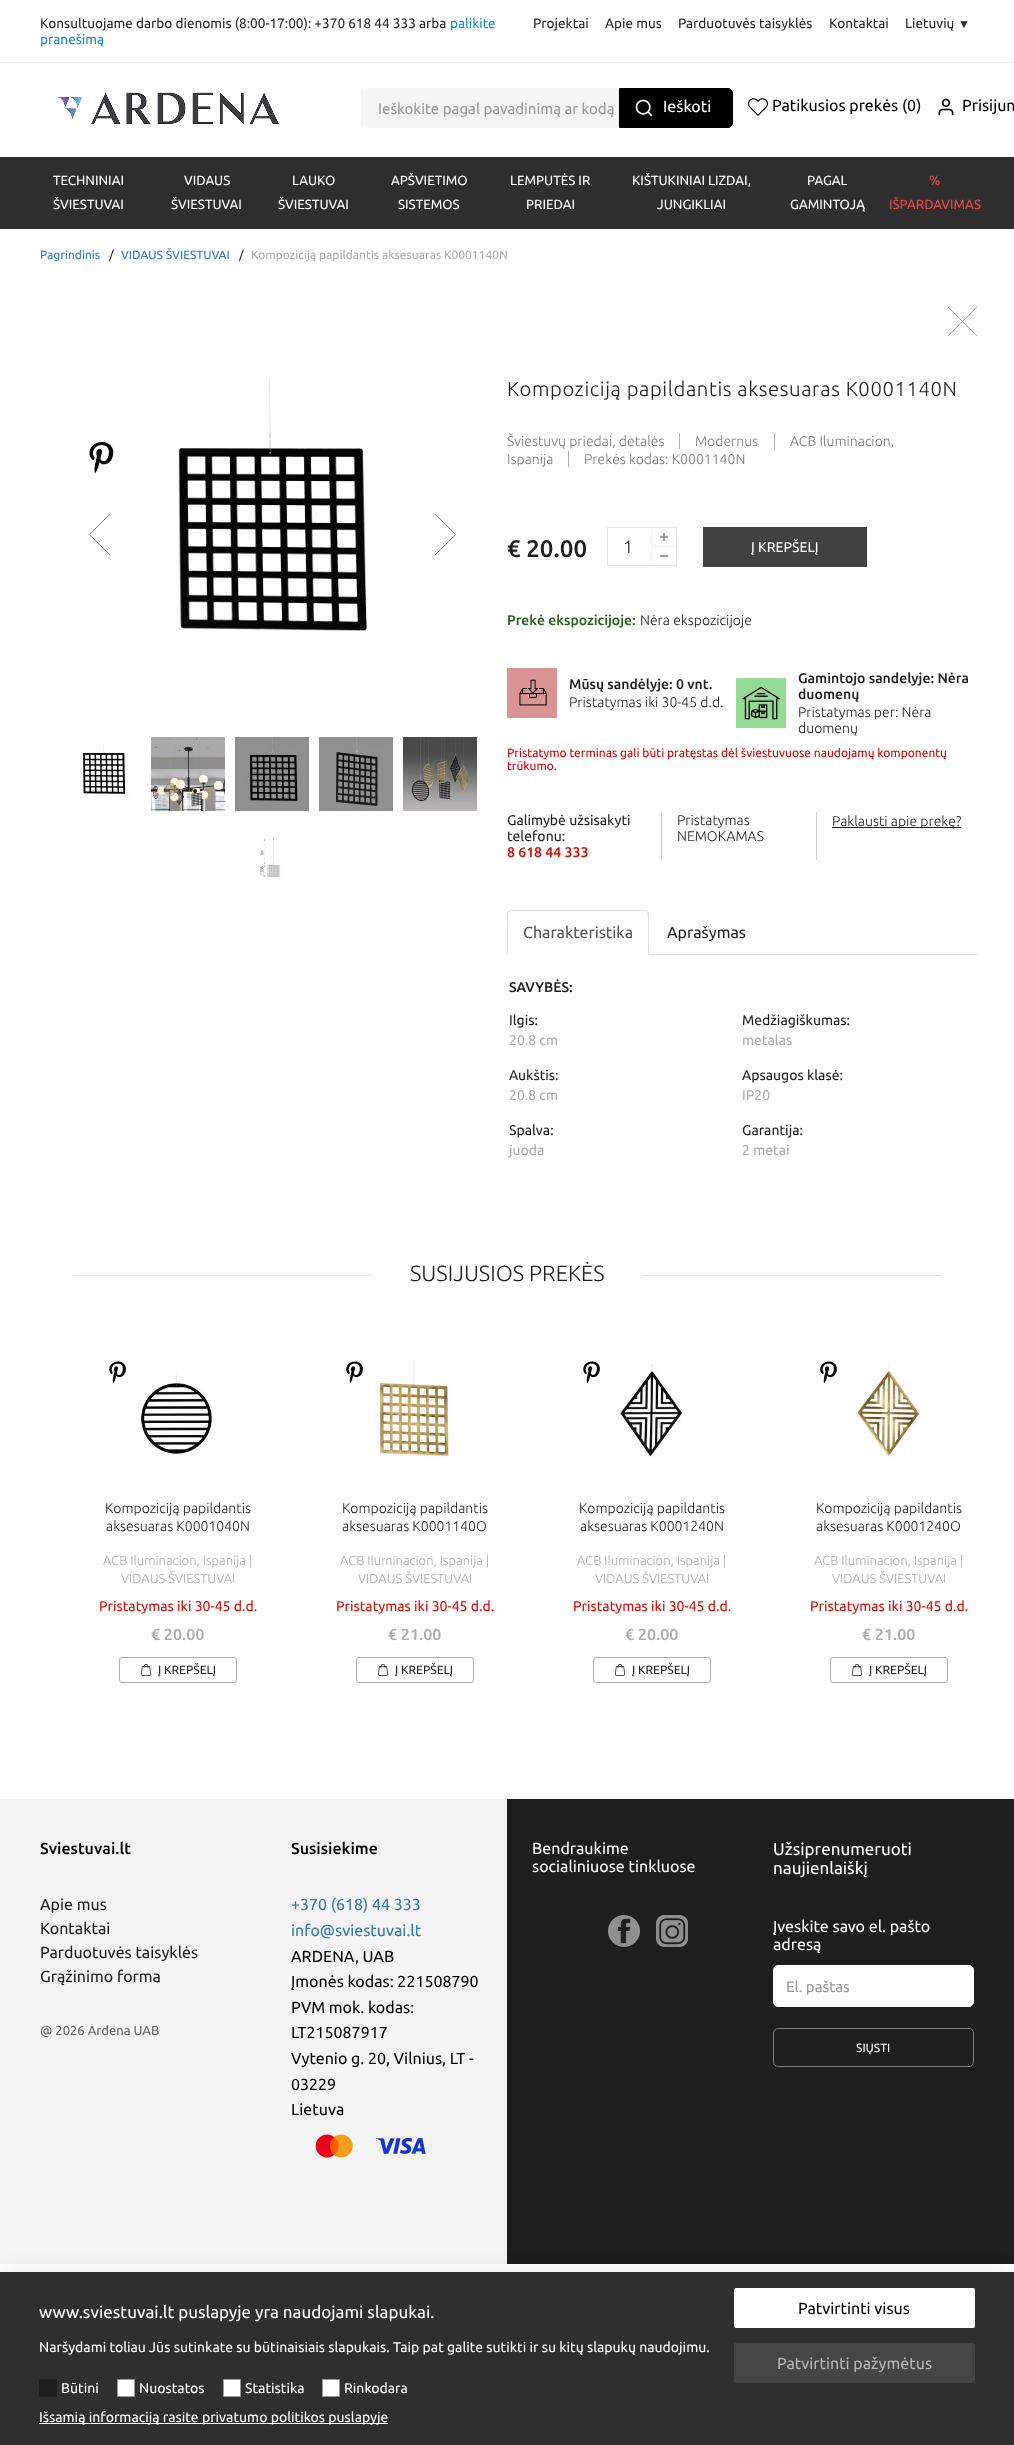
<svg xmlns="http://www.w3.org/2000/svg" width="1014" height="2445">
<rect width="100%" height="100%" fill="#fff"/>
<rect y="62" width="1014" height="1" fill="#f5f5f5"/>
<text x="40" y="28" style="font-family:Ubuntu;font-size:13.6px;fill:#282828">Konsultuojame darbo dienomis (8:00-17:00): +370 618 44 333 arba</text>
<text x="450" y="28" style="font-family:Ubuntu;font-size:13.6px;fill:#158fc3">palikite</text>
<text x="40" y="44" style="font-family:Ubuntu;font-size:13.6px;fill:#158fc3">pranešimą</text>
<text x="533" y="28" style="font-family:Ubuntu;font-size:13.6px;fill:#282828">Projektai</text>
<text x="605" y="28" style="font-family:Ubuntu;font-size:13.6px;fill:#282828">Apie mus</text>
<text x="678" y="28" style="font-family:Ubuntu;font-size:13.6px;fill:#282828">Parduotuvės taisyklės</text>
<text x="829" y="28" style="font-family:Ubuntu;font-size:13.6px;fill:#282828">Kontaktai</text>
<text x="905" y="28" style="font-family:Ubuntu;font-size:13.6px;fill:#282828">Lietuvių</text>
<text x="958" y="28" style="font-family:Liberation Sans;font-size:12px;fill:#282828">▼</text>
<image x="58" y="92" width="221" height="33" href="media/1.png"/>
<path d="M366 88h253v40h-253c-3 0-5-2-5-5v-30c0-3 2-5 5-5z" fill="#f5f5f5"/>
<path d="M366 88h253v40h-253c-3 0-5-2-5-5v-30c0-3 2-5 5-5zm0 1h252v39h-252c-2 0-4-2-4-5v-30c0-2 2-4 4-4z" fill="#f5f5f5" fill-rule="evenodd"/>
<rect x="372.5" y="99.5" width="247" height="18" fill="none" stroke="#f5f5f5"/>
<text x="378" y="114" style="font-family:Ubuntu;font-size:15px;fill:#999">Ieškokite pagal pavadinimą ar kodą</text>
<path d="M619.5 88.5h108.5c2.5 0 4.5 2 4.5 4.5v30c0 2.5-2 4.5-4.5 4.5h-108.5z" fill="#000" stroke="#000"/>
<image x="635" y="99" width="18" height="18" href="media/2.png"/>
<text x="663" y="112" style="font-family:Ubuntu;font-size:16px;fill:#fff">Ieškoti</text>
<image x="748" y="98" width="20" height="18" href="media/3.png"/>
<text x="772" y="111" style="font-family:Ubuntu;font-size:16px;fill:#000">Patikusios prekės (0)</text>
<image x="938" y="98" width="16" height="18" href="media/4.png"/>
<text x="962" y="111" style="font-family:Ubuntu;font-size:16px;fill:#000">Prisijun</text>
<rect y="157" width="1014" height="72" fill="#2f2f2f"/>
<text x="53" y="185" style="font-family:Ubuntu;font-size:13.25px;fill:#fff">TECHNINIAI</text>
<text x="53" y="209" style="font-family:Ubuntu;font-size:13.25px;fill:#fff">ŠVIESTUVAI</text>
<text x="184" y="185" style="font-family:Ubuntu;font-size:13.25px;fill:#fff">VIDAUS</text>
<text x="171" y="209" style="font-family:Ubuntu;font-size:13.25px;fill:#fff">ŠVIESTUVAI</text>
<text x="292" y="185" style="font-family:Ubuntu;font-size:13.25px;fill:#fff">LAUKO</text>
<text x="278" y="209" style="font-family:Ubuntu;font-size:13.25px;fill:#fff">ŠVIESTUVAI</text>
<text x="391" y="185" style="font-family:Ubuntu;font-size:13.25px;fill:#fff">APŠVIETIMO</text>
<text x="398" y="209" style="font-family:Ubuntu;font-size:13.25px;fill:#fff">SISTEMOS</text>
<text x="510" y="185" style="font-family:Ubuntu;font-size:13.25px;fill:#fff">LEMPUTĖS IR</text>
<text x="526" y="209" style="font-family:Ubuntu;font-size:13.25px;fill:#fff">PRIEDAI</text>
<text x="632" y="185" style="font-family:Ubuntu;font-size:13.25px;fill:#fff">KIŠTUKINIAI LIZDAI,</text>
<text x="657" y="209" style="font-family:Ubuntu;font-size:13.25px;fill:#fff">JUNGIKLIAI</text>
<text x="807" y="185" style="font-family:Ubuntu;font-size:13.25px;fill:#fff">PAGAL</text>
<text x="790" y="209" style="font-family:Ubuntu;font-size:13.25px;fill:#fff">GAMINTOJĄ</text>
<text x="929" y="185" style="font-family:Ubuntu;font-size:13.25px;fill:#e54b4b">%</text>
<text x="889" y="209" style="font-family:Ubuntu;font-size:13.25px;fill:#e54b4b">IŠPARDAVIMAS</text>
<text x="40" y="259" style="font-family:Ubuntu;font-size:12px;fill:#337ab7">Pagrindinis</text>
<text x="109" y="259" style="font-family:Ubuntu;font-size:12px;fill:#1e1e1e">/</text>
<text x="121" y="259" style="font-family:Ubuntu;font-size:12px;fill:#337ab7">VIDAUS ŠVIESTUVAI</text>
<text x="239" y="259" style="font-family:Ubuntu;font-size:12px;fill:#1e1e1e">/</text>
<text x="251" y="259" style="font-family:Ubuntu;font-size:12px;fill:#acacac">Kompoziciją papildantis aksesuaras K0001140N</text>
<image x="948" y="307" width="29" height="29" href="media/5.png"/>
<image x="89" y="442" width="25" height="32" href="media/6.png"/>
<image x="178" y="377" width="189" height="254" href="media/7.png"/>
<image x="89" y="514" width="21" height="41" href="media/8.png"/>
<image x="435" y="514" width="21" height="41" href="media/9.png"/>
<image x="83" y="737" width="48" height="64" href="media/10.png"/>
<image x="151" y="737" width="74" height="74" href="media/11.png"/>
<image x="235" y="737" width="74" height="74" href="media/12.png"/>
<image x="319" y="737" width="74" height="74" href="media/13.png"/>
<image x="403" y="737" width="74" height="74" href="media/14.png"/>
<image x="259" y="837" width="22" height="41" href="media/15.png"/>
<text x="507" y="396" style="font-family:Ubuntu;font-size:20.25px;font-weight:300;letter-spacing:0.6px;fill:#1e1e1e">Kompoziciją papildantis aksesuaras K0001140N</text>
<text x="507" y="446" style="font-family:Ubuntu;font-size:14px;font-weight:300;fill:#7b7b7b">Šviestuvų priedai, detalės</text>
<rect x="679" y="433" width="1" height="16" fill="#acacac"/>
<text x="695" y="446" style="font-family:Ubuntu;font-size:14px;font-weight:300;fill:#7b7b7b">Modernus</text>
<rect x="774" y="433" width="1" height="16" fill="#acacac"/>
<text x="790" y="446" style="font-family:Ubuntu;font-size:14px;font-weight:300;fill:#7b7b7b">ACB Iluminacion,</text>
<text x="507" y="464" style="font-family:Ubuntu;font-size:14px;font-weight:300;fill:#7b7b7b">Ispanija</text>
<rect x="568" y="451" width="1" height="16" fill="#acacac"/>
<text x="584" y="464" style="font-family:Ubuntu;font-size:14px;font-weight:300;fill:#7b7b7b">Prekės kodas: K0001140N</text>
<text x="507" y="557" style="font-family:Ubuntu;font-size:24px;font-weight:500;fill:#1e1e1e">€ 20.00</text>
<rect x="607.5" y="527.5" width="69" height="38" fill="none" stroke="#e1e1e1"/>
<text x="623" y="553" style="font-family:Ubuntu;font-size:18px;font-weight:300;fill:#1e1e1e">1</text>
<rect x="651" y="527" width="26" height="20" rx="4" fill="#ffffff80"/>
<image x="660" y="533" width="8" height="8" href="media/16.png"/>
<rect x="651.5" y="527.5" width="25" height="19" rx="3.5" fill="none" stroke="#cfcfcf40"/>
<rect x="651" y="546" width="26" height="20" rx="4" fill="#ffffff80"/>
<rect x="660" y="555" width="8" height="2" fill="#9e9e9e"/>
<rect x="651.5" y="546.5" width="25" height="19" rx="3.5" fill="none" stroke="#cfcfcf40"/>
<rect x="703" y="527" width="164" height="40" fill="#424242"/>
<text x="751" y="552" style="font-family:Ubuntu;font-size:14px;fill:#fff">Į KREPŠELĮ</text>
<text x="507" y="625" style="font-family:Ubuntu;font-size:14px;font-weight:500;fill:#266219">Prekė ekspozicijoje:</text>
<text x="640" y="625" style="font-family:Ubuntu;font-size:14px;font-weight:300;fill:#1e1e1e">Nėra ekspozicijoje</text>
<rect x="507" y="668" width="50" height="50" fill="#da9494"/>
<image x="519" y="679" width="28" height="27" href="media/17.png"/>
<text x="569" y="689" style="font-family:Ubuntu;font-size:14px;font-weight:500;fill:#1e1e1e">Mūsų sandėlyje: 0 vnt.</text>
<text x="569" y="707" style="font-family:Ubuntu;font-size:14px;font-weight:300;fill:#1e1e1e">Pristatymas iki 30-45 d.d.</text>
<rect x="736" y="678" width="50" height="50" fill="#95da94"/>
<image x="742" y="686" width="38" height="34" href="media/18.png"/>
<text x="798" y="683" style="font-family:Ubuntu;font-size:14px;font-weight:500;fill:#1e1e1e">Gamintojo sandelyje: Nėra</text>
<text x="798" y="699" style="font-family:Ubuntu;font-size:14px;font-weight:500;fill:#1e1e1e">duomenų</text>
<text x="798" y="717" style="font-family:Ubuntu;font-size:14px;font-weight:300;fill:#1e1e1e">Pristatymas per: Nėra</text>
<text x="798" y="733" style="font-family:Ubuntu;font-size:14px;font-weight:300;fill:#1e1e1e">duomenų</text>
<text x="507" y="757" style="font-family:Ubuntu;font-size:12px;fill:#d50000">Pristatymo terminas gali būti pratęstas dėl šviestuvuose naudojamų komponentų</text>
<text x="507" y="770" style="font-family:Ubuntu;font-size:12px;fill:#d50000">trūkumo.</text>
<rect x="661" y="812" width="1" height="48" fill="#cfcfcf"/>
<text x="507" y="825" style="font-family:Ubuntu;font-size:14px;fill:#1e1e1e">Galimybė užsisakyti</text>
<text x="507" y="841" style="font-family:Ubuntu;font-size:14px;fill:#1e1e1e">telefonu:</text>
<text x="507" y="857" style="font-family:Ubuntu;font-size:14px;font-weight:500;fill:#d90c05">8 618 44 333</text>
<rect x="816" y="812" width="1" height="48" fill="#cfcfcf"/>
<text x="677" y="825" style="font-family:Ubuntu;font-size:14px;font-weight:300;fill:#1e1e1e">Pristatymas</text>
<text x="677" y="841" style="font-family:Ubuntu;font-size:14px;font-weight:300;fill:#1e1e1e">NEMOKAMAS</text>
<rect x="832" y="827" width="129" height="1" fill="#1e1e1e"/>
<text x="832" y="826" style="font-family:Ubuntu;font-size:14px;font-weight:300;fill:#1e1e1e">Paklausti apie prekę?</text>
<rect x="649" y="954" width="328" height="1" fill="#ddd"/>
<path d="M511 910l-3 1l1 1l2-1h134l2 1l1-1l-3-1z" fill="#ddd"/>
<path d="M649 955v-41c0-1-1-2-1-3l-1 1c2 2 1 37 1 42z" fill="#ddd"/>
<path d="M507 955l1-1c0-5-1-40 1-42l-1-1l-1 3z" fill="#ddd"/>
<text x="523" y="938" style="font-family:Ubuntu;font-size:16px;fill:#555">Charakteristika</text>
<text x="667" y="938" style="font-family:Ubuntu;font-size:16px;fill:#1e1e1e">Aprašymas</text>
<text x="509" y="992" style="font-family:Ubuntu;font-size:14px;font-weight:500;fill:#1e1e1e">SAVYBĖS:</text>
<text x="509" y="1025" style="font-family:Ubuntu;font-size:14px;fill:#1e1e1e">Ilgis:</text>
<text x="509" y="1045" style="font-family:Ubuntu;font-size:14px;fill:#acacac">20.8 cm</text>
<text x="509" y="1080" style="font-family:Ubuntu;font-size:14px;fill:#1e1e1e">Aukštis:</text>
<text x="509" y="1100" style="font-family:Ubuntu;font-size:14px;fill:#acacac">20.8 cm</text>
<text x="509" y="1135" style="font-family:Ubuntu;font-size:14px;fill:#1e1e1e">Spalva:</text>
<text x="509" y="1155" style="font-family:Ubuntu;font-size:14px;fill:#acacac">juoda</text>
<text x="742" y="1025" style="font-family:Ubuntu;font-size:14px;fill:#1e1e1e">Medžiagiškumas:</text>
<text x="742" y="1045" style="font-family:Ubuntu;font-size:14px;fill:#acacac">metalas</text>
<text x="742" y="1080" style="font-family:Ubuntu;font-size:14px;fill:#1e1e1e">Apsaugos klasė:</text>
<text x="742" y="1100" style="font-family:Ubuntu;font-size:14px;fill:#acacac">IP20</text>
<text x="742" y="1135" style="font-family:Ubuntu;font-size:14px;fill:#1e1e1e">Garantija:</text>
<text x="742" y="1155" style="font-family:Ubuntu;font-size:14px;fill:#acacac">2 metai</text>
<rect x="73" y="1275" width="868" height="1" fill="#e2e2e2"/>
<rect x="372" y="1275" width="270" height="1" fill="#fff"/>
<text x="410" y="1281" style="font-family:Ubuntu;font-size:22px;font-weight:300;fill:#1e1e1e">SUSIJUSIOS PREKĖS</text>
<image x="109" y="1361" width="17" height="23" href="media/19.png"/>
<image x="141" y="1358" width="72" height="96" href="media/20.png"/>
<text x="105" y="1513" style="font-family:Ubuntu;font-size:14px;font-weight:300;fill:#1e1e1e">Kompoziciją papildantis</text>
<text x="106" y="1531" style="font-family:Ubuntu;font-size:14px;font-weight:300;fill:#1e1e1e">aksesuaras K0001040N</text>
<text x="103" y="1565" style="font-family:Ubuntu;font-size:13px;font-weight:300;fill:#acacac">ACB Iluminacion, Ispanija |</text>
<text x="121" y="1583" style="font-family:Ubuntu;font-size:13px;font-weight:300;fill:#acacac">VIDAUS ŠVIESTUVAI</text>
<text x="99" y="1611" style="font-family:Ubuntu;font-size:14px;fill:#d90c05">Pristatymas iki 30-45 d.d.</text>
<text x="151" y="1640" style="font-family:Ubuntu;font-size:16px;font-weight:500;fill:#acacac">€ 20.00</text>
<rect x="119.5" y="1657.5" width="117" height="25" rx="2.5" fill="none" stroke="#acacac"/>
<image x="141" y="1664" width="10" height="12" href="media/21.png"/>
<text x="158" y="1674" style="font-family:Ubuntu;font-size:12px;fill:#1e1e1e">Į KREPŠELĮ</text>
<image x="346" y="1361" width="17" height="23" href="media/19.png"/>
<image x="376" y="1358" width="78" height="100" href="media/22.png"/>
<text x="342" y="1513" style="font-family:Ubuntu;font-size:14px;font-weight:300;fill:#1e1e1e">Kompoziciją papildantis</text>
<text x="342" y="1531" style="font-family:Ubuntu;font-size:14px;font-weight:300;fill:#1e1e1e">aksesuaras K0001140O</text>
<text x="340" y="1565" style="font-family:Ubuntu;font-size:13px;font-weight:300;fill:#acacac">ACB Iluminacion, Ispanija |</text>
<text x="358" y="1583" style="font-family:Ubuntu;font-size:13px;font-weight:300;fill:#acacac">VIDAUS ŠVIESTUVAI</text>
<text x="336" y="1611" style="font-family:Ubuntu;font-size:14px;fill:#d90c05">Pristatymas iki 30-45 d.d.</text>
<text x="388" y="1640" style="font-family:Ubuntu;font-size:16px;font-weight:500;fill:#acacac">€ 21.00</text>
<rect x="356.5" y="1657.5" width="117" height="25" rx="2.5" fill="none" stroke="#acacac"/>
<image x="378" y="1664" width="10" height="12" href="media/21.png"/>
<text x="395" y="1674" style="font-family:Ubuntu;font-size:12px;fill:#1e1e1e">Į KREPŠELĮ</text>
<image x="583" y="1361" width="17" height="23" href="media/19.png"/>
<image x="620" y="1363" width="63" height="95" href="media/23.png"/>
<text x="579" y="1513" style="font-family:Ubuntu;font-size:14px;font-weight:300;fill:#1e1e1e">Kompoziciją papildantis</text>
<text x="580" y="1531" style="font-family:Ubuntu;font-size:14px;font-weight:300;fill:#1e1e1e">aksesuaras K0001240N</text>
<text x="577" y="1565" style="font-family:Ubuntu;font-size:13px;font-weight:300;fill:#acacac">ACB Iluminacion, Ispanija |</text>
<text x="595" y="1583" style="font-family:Ubuntu;font-size:13px;font-weight:300;fill:#acacac">VIDAUS ŠVIESTUVAI</text>
<text x="573" y="1611" style="font-family:Ubuntu;font-size:14px;fill:#d90c05">Pristatymas iki 30-45 d.d.</text>
<text x="625" y="1640" style="font-family:Ubuntu;font-size:16px;font-weight:500;fill:#acacac">€ 20.00</text>
<rect x="593.5" y="1657.5" width="117" height="25" rx="2.5" fill="none" stroke="#acacac"/>
<image x="615" y="1664" width="10" height="12" href="media/21.png"/>
<text x="632" y="1674" style="font-family:Ubuntu;font-size:12px;fill:#1e1e1e">Į KREPŠELĮ</text>
<image x="820" y="1361" width="17" height="23" href="media/19.png"/>
<image x="854" y="1362" width="66" height="96" href="media/24.png"/>
<text x="816" y="1513" style="font-family:Ubuntu;font-size:14px;font-weight:300;fill:#1e1e1e">Kompoziciją papildantis</text>
<text x="816" y="1531" style="font-family:Ubuntu;font-size:14px;font-weight:300;fill:#1e1e1e">aksesuaras K0001240O</text>
<text x="814" y="1565" style="font-family:Ubuntu;font-size:13px;font-weight:300;fill:#acacac">ACB Iluminacion, Ispanija |</text>
<text x="832" y="1583" style="font-family:Ubuntu;font-size:13px;font-weight:300;fill:#acacac">VIDAUS ŠVIESTUVAI</text>
<text x="810" y="1611" style="font-family:Ubuntu;font-size:14px;fill:#d90c05">Pristatymas iki 30-45 d.d.</text>
<text x="862" y="1640" style="font-family:Ubuntu;font-size:16px;font-weight:500;fill:#acacac">€ 21.00</text>
<rect x="830.5" y="1657.5" width="117" height="25" rx="2.5" fill="none" stroke="#acacac"/>
<image x="852" y="1664" width="10" height="12" href="media/21.png"/>
<text x="869" y="1674" style="font-family:Ubuntu;font-size:12px;fill:#1e1e1e">Į KREPŠELĮ</text>
<rect y="1799" width="507" height="465" fill="#f4f4f4"/>
<rect x="507" y="1799" width="507" height="465" fill="#1e1e1e"/>
<text x="40" y="1854" style="font-family:Ubuntu;font-size:16px;font-weight:500;fill:#000">Sviestuvai.lt</text>
<text x="40" y="1910" style="font-family:Ubuntu;font-size:16px;fill:#1e1e1e">Apie mus</text>
<text x="40" y="1934" style="font-family:Ubuntu;font-size:16px;fill:#1e1e1e">Kontaktai</text>
<text x="40" y="1958" style="font-family:Ubuntu;font-size:16px;fill:#1e1e1e">Parduotuvės taisyklės</text>
<text x="40" y="1982" style="font-family:Ubuntu;font-size:16px;fill:#1e1e1e">Grąžinimo forma</text>
<text x="40" y="2035" style="font-family:Ubuntu;font-size:13px;fill:#666">@ 2026 Ardena UAB</text>
<text x="291" y="1854" style="font-family:Ubuntu;font-size:16px;font-weight:500;fill:#000">Susisiekime</text>
<text x="291" y="1910" style="font-family:Ubuntu;font-size:16px;fill:#337ab7">+370 (618) 44 333</text>
<text x="291" y="1936" style="font-family:Ubuntu;font-size:16px;fill:#337ab7">info@sviestuvai.lt</text>
<text x="291" y="1962" style="font-family:Ubuntu;font-size:16px;fill:#000">ARDENA, UAB</text>
<text x="291" y="1987" style="font-family:Ubuntu;font-size:16px;fill:#000">Įmonės kodas: 221508790</text>
<text x="291" y="2013" style="font-family:Ubuntu;font-size:16px;fill:#000">PVM mok. kodas:</text>
<text x="291" y="2038" style="font-family:Ubuntu;font-size:16px;fill:#000">LT215087917</text>
<text x="291" y="2064" style="font-family:Ubuntu;font-size:16px;fill:#000">Vytenio g. 20, Vilnius, LT -</text>
<text x="291" y="2090" style="font-family:Ubuntu;font-size:16px;fill:#000">03229</text>
<text x="291" y="2115" style="font-family:Ubuntu;font-size:16px;fill:#000">Lietuva</text>
<image x="315" y="2134" width="111" height="24" href="media/25.png"/>
<text x="532" y="1854" style="font-family:Ubuntu;font-size:16px;fill:#fff">Bendraukime</text>
<text x="532" y="1872" style="font-family:Ubuntu;font-size:16px;fill:#fff">socialiniuose tinkluose</text>
<image x="608" y="1915" width="32" height="32" href="media/26.png"/>
<image x="656" y="1915" width="32" height="32" href="media/27.png"/>
<text x="773" y="1855" style="font-family:Ubuntu;font-size:17px;fill:#fff">Užsiprenumeruoti</text>
<text x="773" y="1874" style="font-family:Ubuntu;font-size:17px;fill:#fff">naujienlaiškį</text>
<text x="773" y="1932" style="font-family:Ubuntu;font-size:16px;fill:#fff">Įveskite savo el. pašto</text>
<text x="773" y="1950" style="font-family:Ubuntu;font-size:16px;fill:#fff">adresą</text>
<rect x="773.5" y="1965.5" width="200" height="41" rx="4.5" fill="#fff" stroke="#fff"/>
<text x="786" y="1992" style="font-family:Ubuntu;font-size:15px;fill:#999">El. paštas</text>
<rect x="773.5" y="2028.5" width="200" height="38" rx="4.5" fill="none" stroke="#7d7d7d"/>
<text x="856" y="2052" style="font-family:Ubuntu;font-size:12px;fill:#fff">SIŲSTI</text>
<rect y="2276" width="1014" height="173" fill="#0000001f" filter="blur(12px)"/>
<rect y="2272" width="1014" height="173" fill="#2f2f2f"/>
<text x="39" y="2318" style="font-family:Ubuntu;font-size:17px;fill:#fff">www.sviestuvai.lt puslapyje yra naudojami slapukai.</text>
<text x="39" y="2352" style="font-family:Ubuntu;font-size:14px;fill:#fff">Naršydami toliau Jūs sutinkate su būtinaisiais slapukais. Taip pat galite sutikti ir su kitų slapukų naudojimu.</text>
<rect x="39" y="2379" width="18" height="18" fill="#1e1e1e"/>
<text x="61" y="2393" style="font-family:Ubuntu;font-size:14px;fill:#fff">Būtini</text>
<rect x="117.5" y="2379.5" width="17" height="17" fill="#fff" stroke="#979797"/>
<text x="139" y="2393" style="font-family:Ubuntu;font-size:14px;fill:#fff">Nuostatos</text>
<rect x="223.5" y="2379.5" width="17" height="17" fill="#fff" stroke="#979797"/>
<text x="245" y="2393" style="font-family:Ubuntu;font-size:14px;fill:#fff">Statistika</text>
<rect x="322.5" y="2379.5" width="17" height="17" fill="#fff" stroke="#979797"/>
<text x="344" y="2393" style="font-family:Ubuntu;font-size:14px;fill:#fff">Rinkodara</text>
<rect x="39" y="2423" width="349" height="1" fill="#fff"/>
<text x="39" y="2422" style="font-family:Ubuntu;font-size:14px;fill:#fff">Išsamią informaciją rasite privatumo politikos puslapyje</text>
<rect x="734" y="2288" width="241" height="40" rx="2" fill="#fff"/>
<text x="798" y="2314" style="font-family:Ubuntu;font-size:16px;fill:#000">Patvirtinti visus</text>
<rect x="734" y="2343" width="241" height="40" rx="2" fill="#464545"/>
<text x="777" y="2369" style="font-family:Ubuntu;font-size:16px;fill:#b6b6b6">Patvirtinti pažymėtus</text>
</svg>
